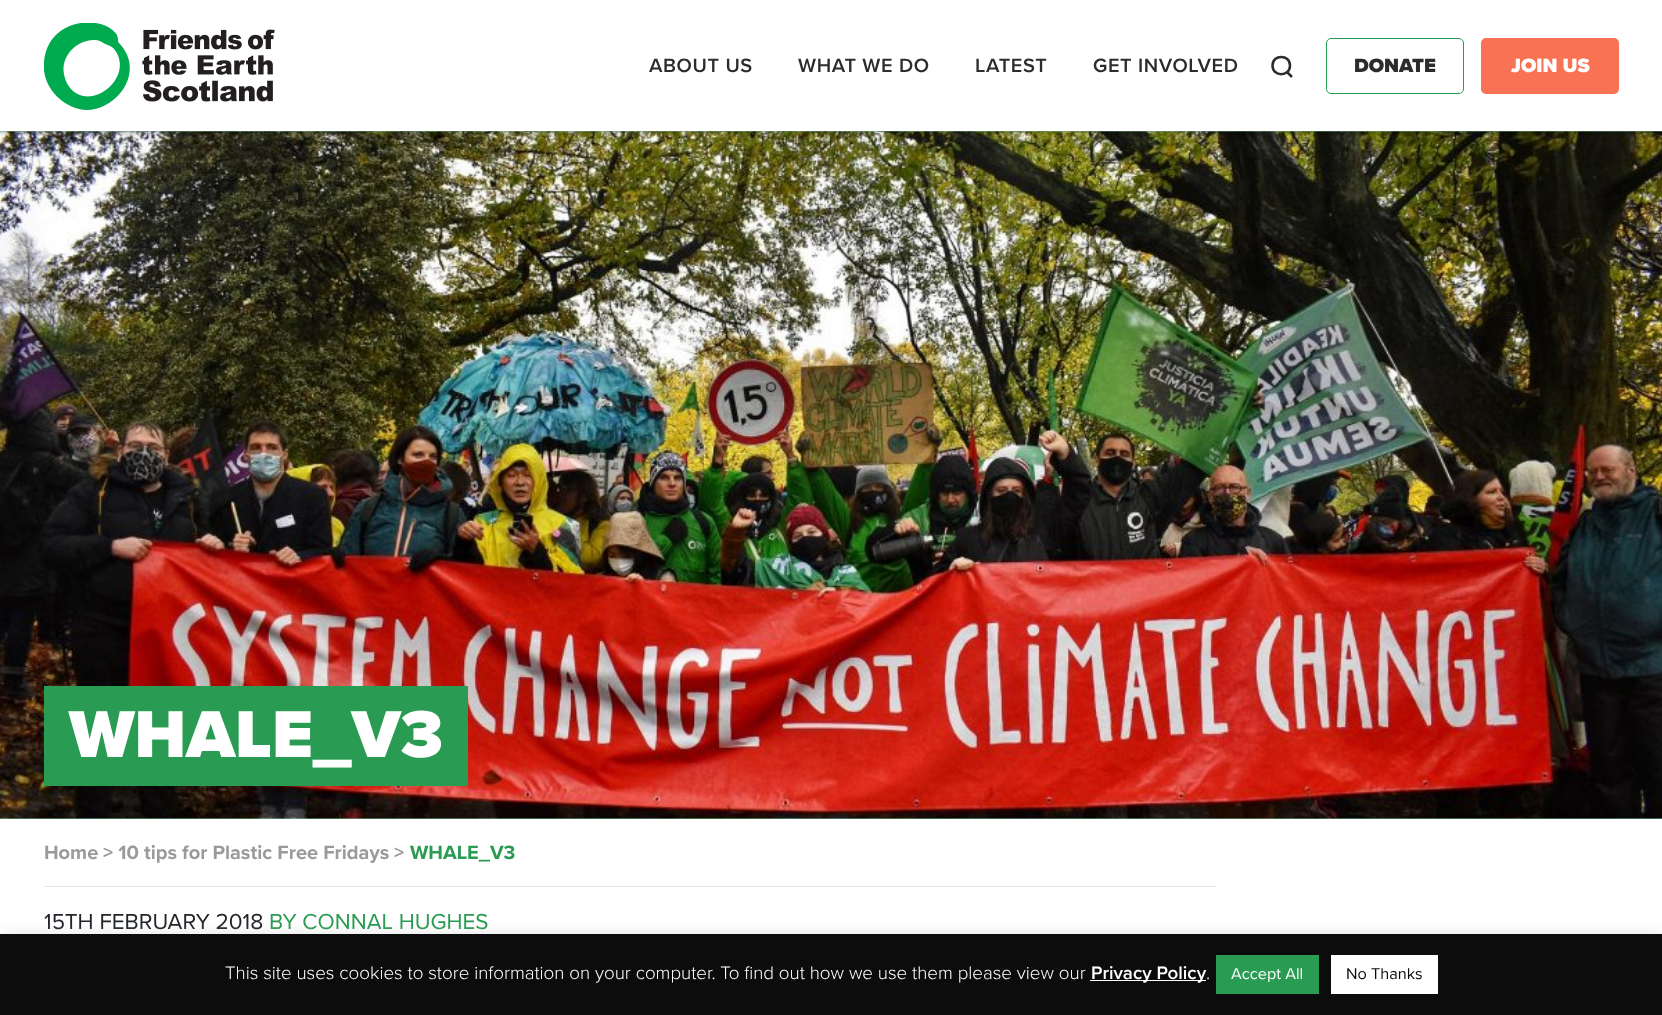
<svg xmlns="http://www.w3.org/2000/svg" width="1662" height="1015">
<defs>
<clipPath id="clip1"><rect x="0" y="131" width="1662" height="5"/></clipPath>
</defs>
<rect width="100%" height="100%" fill="#fff"/>
<rect y="131" width="1662" height="688" fill="#80dda1"/>
<image x="0" y="131" width="1662" height="688" href="media/2.png"/>
<g clip-path="url(#clip1)">
<rect width="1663" height="131" fill="#00000080" filter="blur(3px)"/>
</g>
<image x="44" y="23" width="231" height="87" href="media/1.png"/>
<text x="649" y="72" style="font-family:Proxima Nova;font-size:20px;font-weight:600;letter-spacing:0.6px;fill:#2c2c2c">ABOUT US</text>
<text x="798" y="72" style="font-family:Proxima Nova;font-size:20px;font-weight:600;letter-spacing:0.6px;fill:#2c2c2c">WHAT WE DO</text>
<text x="975" y="72" style="font-family:Proxima Nova;font-size:20px;font-weight:600;letter-spacing:0.6px;fill:#2c2c2c">LATEST</text>
<text x="1093" y="72" style="font-family:Proxima Nova;font-size:20px;font-weight:600;letter-spacing:0.6px;fill:#2c2c2c">GET INVOLVED</text>
<path d="M1290 65.5c0 11.5-17.5 11.5-17.5 0c0-11.5 17.5-11.5 17.5 0zm-3.5 6l5.5 5.5" fill="none" stroke="#2c2c2c" stroke-width="2.5"/>
<rect x="1326.5" y="38.5" width="137" height="55" rx="4.5" fill="none" stroke="#299b52"/>
<text x="1354" y="72" style="font-family:Proxima Nova;font-size:20px;font-weight:900;fill:#2c2c2c">DONATE</text>
<rect x="1481" y="38" width="138" height="56" rx="5" fill="#fa7254"/>
<text x="1511" y="72" style="font-family:Proxima Nova;font-size:20px;font-weight:900;fill:#fff">JOIN US</text>
<rect x="44" y="686" width="424" height="100" fill="#299b52"/>
<text x="69" y="757" style="font-family:Proxima Nova;font-size:68.75px;font-weight:900;fill:#fff">WHALE_V3</text>
<text x="44" y="859" style="font-family:Proxima Nova;font-size:20px;font-weight:bold;fill:#9a9a9a">Home</text>
<text x="103" y="859" style="font-family:Proxima Nova;font-size:20px;font-weight:bold;fill:#9a9a9a">&gt; 10 tips for Plastic Free Fridays</text>
<text x="394" y="859" style="font-family:Proxima Nova;font-size:20px;font-weight:bold;fill:#9a9a9a">&gt;</text>
<text x="410" y="859" style="font-family:Proxima Nova;font-size:20px;font-weight:bold;fill:#299b52">WHALE_V3</text>
<rect x="44" y="886" width="1172" height="1" fill="#e6e6e6"/>
<text x="44" y="929" style="font-family:Proxima Nova;font-size:22.5px;fill:#212529">15TH FEBRUARY 2018</text>
<text x="269" y="929" style="font-family:Proxima Nova;font-size:22.5px;fill:#299b52">BY CONNAL HUGHES</text>
<rect y="933" width="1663" height="81" fill="#acabab4d" filter="blur(6px)"/>
<rect y="934" width="1662" height="81" fill="#0c0c0c"/>
<text x="225" y="979" style="font-family:Proxima Nova;font-size:18.75px;font-weight:300;fill:#fff">This site uses cookies to store information on your computer. To find out how we use them please view our</text>
<rect x="1090" y="980" width="116" height="1" fill="#fff"/>
<text x="1091" y="979" style="font-family:Proxima Nova;font-size:18.75px;font-weight:600;fill:#fff">Privacy Policy</text>
<text x="1206" y="979" style="font-family:Proxima Nova;font-size:18.75px;font-weight:300;fill:#fff">.</text>
<rect x="1216" y="955" width="103" height="39" fill="#299b52"/>
<text x="1231" y="979" style="font-family:Proxima Nova;font-size:16.25px;fill:#fff">Accept All</text>
<rect x="1331" y="955" width="107" height="39" fill="#fff"/>
<text x="1346" y="979" style="font-family:Proxima Nova;font-size:16.25px;fill:#0a0a0a">No Thanks</text>
</svg>
